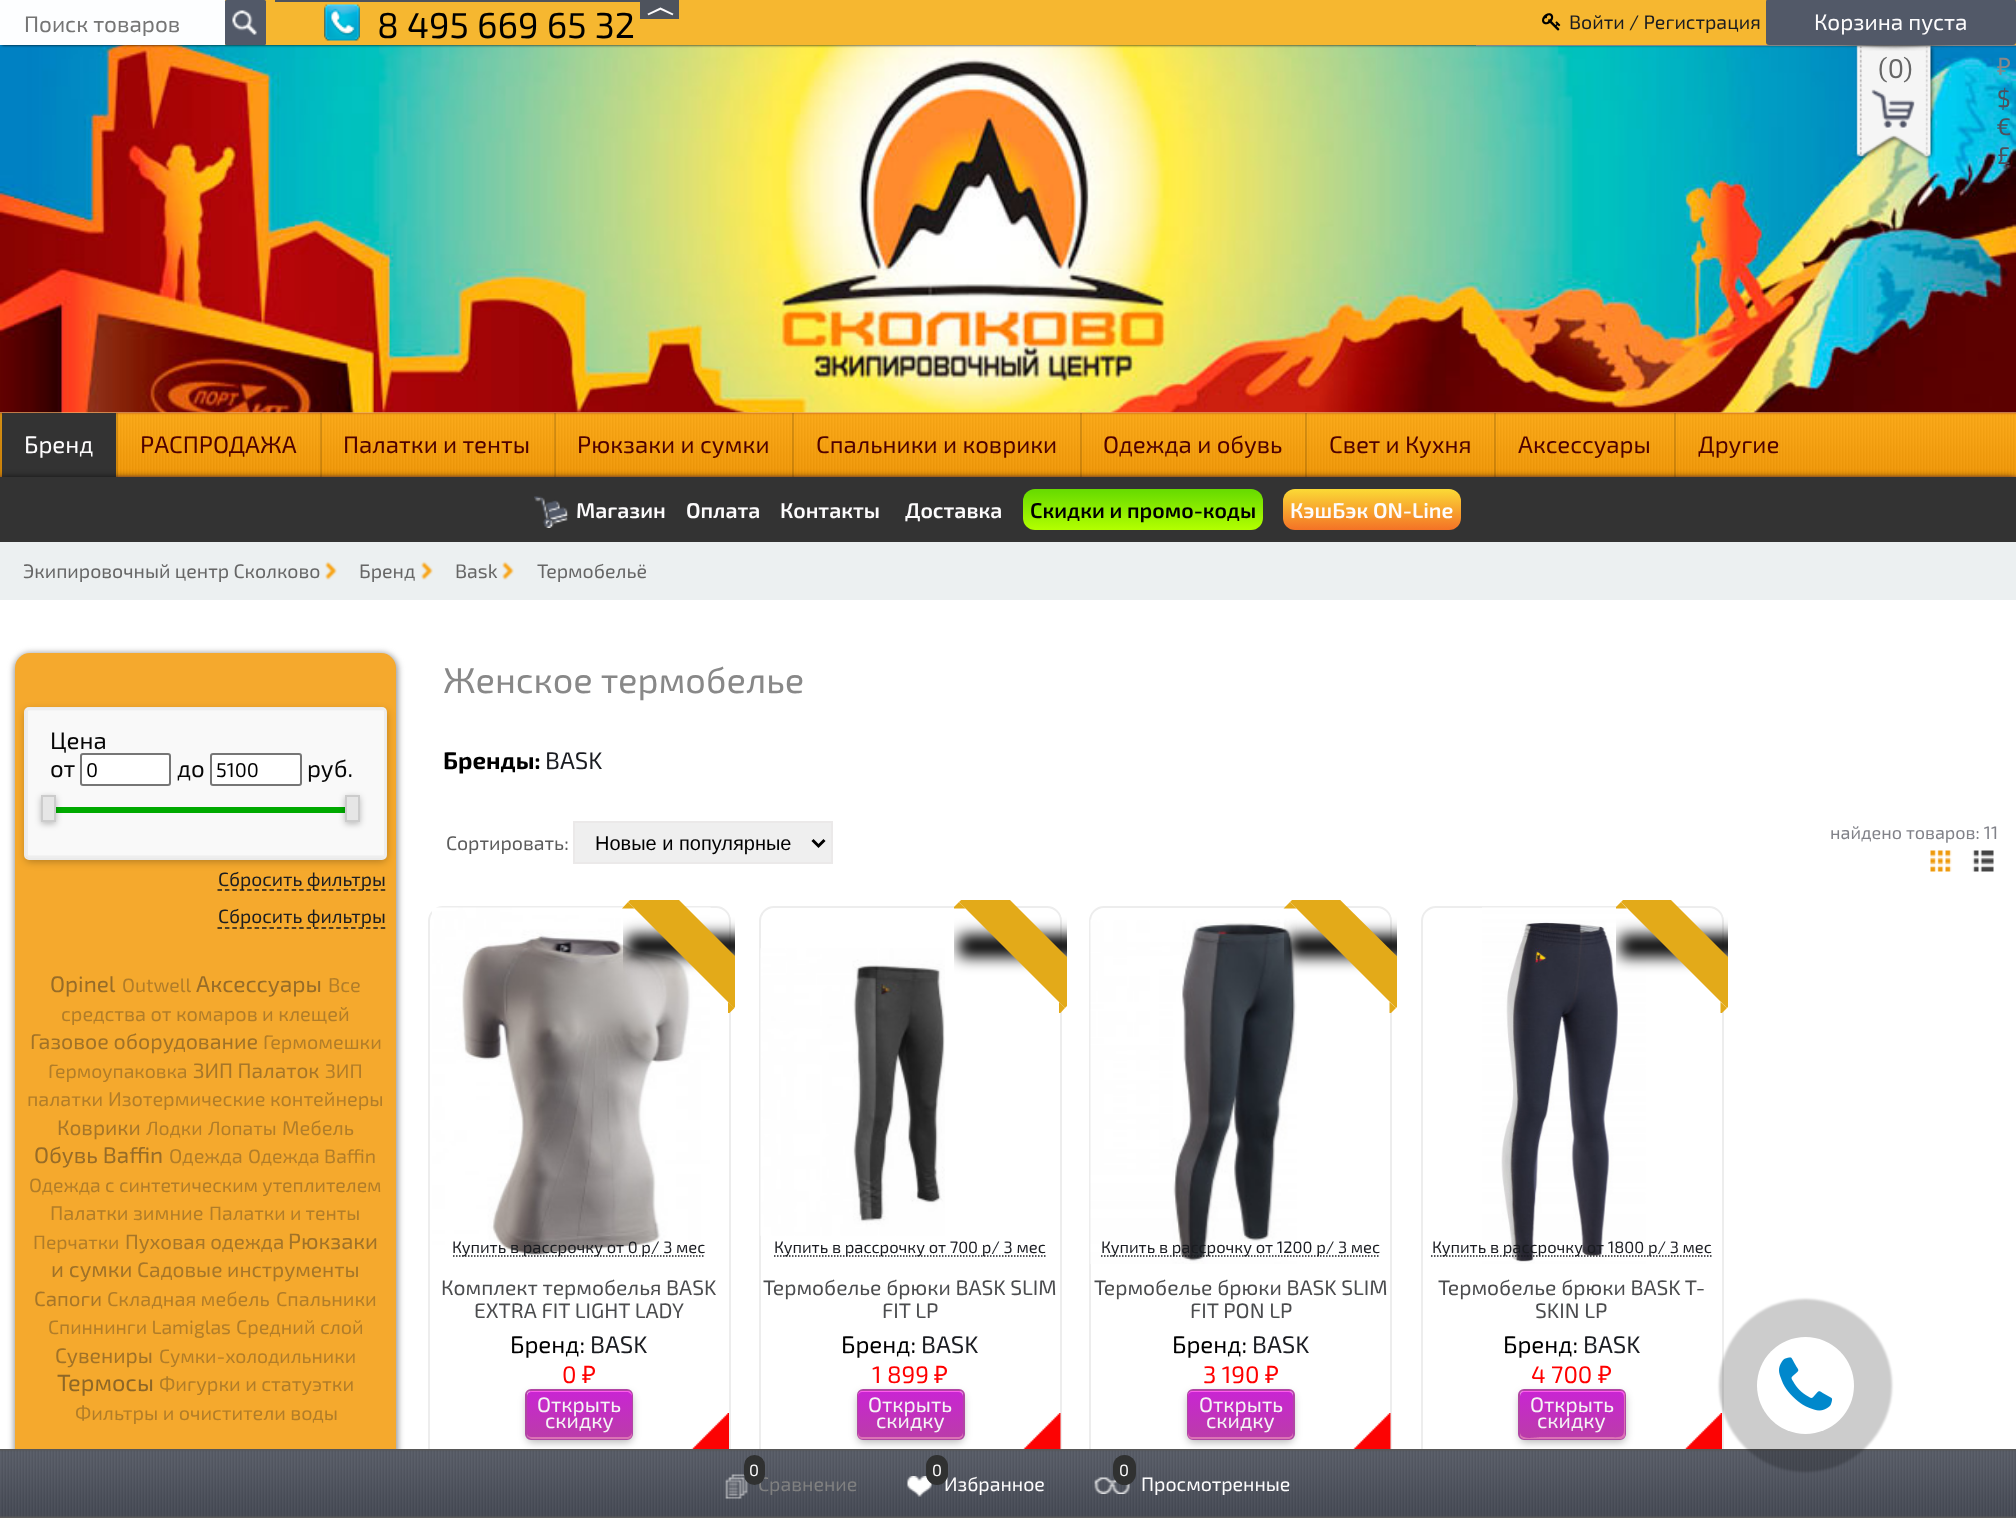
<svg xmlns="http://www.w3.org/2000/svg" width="2016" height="1518">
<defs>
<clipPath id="clip1"><rect x="24" y="9" width="176" height="27"/></clipPath>
<clipPath id="clip2"><path d="M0 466h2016v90h-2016zm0 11h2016v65h-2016z" clip-rule="evenodd"/></clipPath>
<linearGradient id="g1" gradientUnits="userSpaceOnUse" x1="1143" y1="489" x2="1143" y2="530"><stop offset="0.05" stop-color="#69dc00"/><stop offset="1" stop-color="#b3ff00"/></linearGradient>
<linearGradient id="g2" gradientUnits="userSpaceOnUse" x1="1372" y1="489" x2="1372" y2="530"><stop offset="0" stop-color="#fbda36"/><stop offset="1" stop-color="#f47226"/></linearGradient>
<clipPath id="clip3"><rect x="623" y="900" width="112" height="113"/></clipPath>
<clipPath id="clip4"><rect x="623" y="900" width="112" height="113"/></clipPath>
<linearGradient id="g3" gradientUnits="userSpaceOnUse" x1="579" y1="1391" x2="579" y2="1439"><stop offset="0" stop-color="#c925d3"/><stop offset="1" stop-color="#ba3da8"/></linearGradient>
<clipPath id="clip5"><rect x="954" y="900" width="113" height="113"/></clipPath>
<clipPath id="clip6"><rect x="954" y="900" width="113" height="113"/></clipPath>
<linearGradient id="g4" gradientUnits="userSpaceOnUse" x1="911" y1="1391" x2="911" y2="1439"><stop offset="0" stop-color="#c925d3"/><stop offset="1" stop-color="#ba3da8"/></linearGradient>
<clipPath id="clip7"><rect x="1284" y="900" width="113" height="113"/></clipPath>
<clipPath id="clip8"><rect x="1284" y="900" width="113" height="113"/></clipPath>
<linearGradient id="g5" gradientUnits="userSpaceOnUse" x1="1241" y1="1391" x2="1241" y2="1439"><stop offset="0" stop-color="#c925d3"/><stop offset="1" stop-color="#ba3da8"/></linearGradient>
<clipPath id="clip9"><rect x="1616" y="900" width="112" height="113"/></clipPath>
<clipPath id="clip10"><rect x="1616" y="900" width="112" height="113"/></clipPath>
<linearGradient id="g6" gradientUnits="userSpaceOnUse" x1="1572" y1="1391" x2="1572" y2="1439"><stop offset="0" stop-color="#c925d3"/><stop offset="1" stop-color="#ba3da8"/></linearGradient>
</defs>
<rect width="100%" height="100%" fill="#fff"/>
<image x="0" y="45" width="2016" height="368" href="media/3.png"/>
<rect x="1476" y="45" width="540" height="1" fill="#d2d2d3"/>
<image x="1855" y="45" width="80" height="116" href="media/5.png"/>
<image x="1837" y="45" width="116" height="6" href="media/6.png"/>
<rect x="2" width="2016" height="45" fill="#000" filter="blur(1.5px)"/>
<rect x="225" width="1791" height="45" fill="#f6b730"/>
<image x="324" y="4" width="36" height="37" href="media/1.png"/>
<text x="377" y="38" style="font-family:'Exo 2';font-size:36px;fill:#000">8 495 669 65 32</text>
<rect x="275" width="365" height="2" fill="#4e535d"/>
<rect x="640" width="39" height="19" fill="#4e535d"/>
<text x="650" y="-10" transform="rotate(90 650 -10)" style="font-family:WenQuanYi Zen Hei;font-size:28px;font-weight:bold;fill:#fdfcfd">〈</text>
<image x="1542" y="13" width="19" height="18" href="media/2.png"/>
<text x="1569" y="29" style="font-family:'Exo 2';font-size:19.5px;fill:#1a1c21">Войти / Регистрация</text>
<rect x="1766" y="-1" width="250" height="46" rx="3" fill="#525968"/>
<text x="1814" y="30" style="font-family:'Exo 2';font-size:22.5px;fill:#fdfcfd">Корзина пуста</text>
<rect width="225" height="45" fill="#fdfeff"/>
<g clip-path="url(#clip1)">
<text x="24" y="32" style="font-family:'Exo 2';font-size:22.5px;fill:#757575">Поиск товаров</text>
</g>
<rect x="225" width="41" height="45" rx="1.5" fill="#525968"/>
<image x="232" y="10" width="25" height="25" href="media/4.png"/>
<text x="1997" y="75" style="font-family:Noto Sans;font-size:24px;fill:#888">₽</text>
<text x="1997" y="107" style="font-family:'Exo 2';font-size:24px;fill:#4e505c">$</text>
<text x="1996" y="135" style="font-family:'Exo 2';font-size:24px;fill:#4e505c">€</text>
<text x="1997" y="164" style="font-family:'Exo 2';font-size:24px;fill:#4e505c">£</text>
<text x="1878" y="78" style="font-family:'Exo 2';font-size:27px;fill:#666">(0</text>
<text x="1903" y="78" style="font-family:'Exo 2';font-size:27px;fill:#666">)</text>
<image x="1871" y="89" width="45" height="40" href="media/7.png"/>
<image x="0" y="412" width="2016" height="65" href="media/8.png"/>
<rect y="413" width="2" height="64" fill="#07070724"/>
<rect x="2" y="413" width="114" height="64" fill="#333"/>
<text x="24" y="453" style="font-family:'Exo 2';font-size:24px;fill:#fdfcfd">Бренд</text>
<rect x="116" y="413" width="2" height="64" fill="#07070724"/>
<text x="140" y="453" style="font-family:'Exo 2';font-size:24px;fill:#4f0000">РАСПРОДАЖА</text>
<rect x="320" y="413" width="2" height="64" fill="#07070724"/>
<text x="343" y="453" style="font-family:'Exo 2';font-size:24px;fill:#4f0000">Палатки и тенты</text>
<rect x="554" y="413" width="2" height="64" fill="#07070724"/>
<text x="577" y="453" style="font-family:'Exo 2';font-size:24px;fill:#4f0000">Рюкзаки и сумки</text>
<rect x="792" y="413" width="2" height="64" fill="#07070724"/>
<text x="816" y="453" style="font-family:'Exo 2';font-size:24px;fill:#4f0000">Спальники и коврики</text>
<rect x="1080" y="413" width="2" height="64" fill="#07070724"/>
<text x="1103" y="453" style="font-family:'Exo 2';font-size:24px;fill:#4f0000">Одежда и обувь</text>
<rect x="1305" y="413" width="2" height="64" fill="#07070724"/>
<text x="1329" y="453" style="font-family:'Exo 2';font-size:24px;fill:#4f0000">Свет и Кухня</text>
<rect x="1494" y="413" width="2" height="64" fill="#07070724"/>
<text x="1518" y="453" style="font-family:'Exo 2';font-size:24px;fill:#4f0000">Аксессуары</text>
<rect x="1674" y="413" width="2" height="64" fill="#07070724"/>
<text x="1698" y="453" style="font-family:'Exo 2';font-size:24px;fill:#4f0000">Другие</text>
<rect y="477" width="2016" height="65" fill="#333"/>
<g clip-path="url(#clip2)">
<rect y="479" width="2016" height="64" fill="#000" filter="blur(4px)"/>
</g>
<image x="534" y="496" width="35" height="32" href="media/9.png"/>
<text x="576" y="518" style="font-family:'Exo 2';font-size:21.4px;font-weight:600;fill:#fdfcfd">Магазин</text>
<text x="686" y="518" style="font-family:'Exo 2';font-size:21.4px;font-weight:600;fill:#fdfcfd">Оплата</text>
<text x="780" y="518" style="font-family:'Exo 2';font-size:21.4px;font-weight:600;fill:#fdfcfd">Контакты</text>
<text x="905" y="518" style="font-family:'Exo 2';font-size:21.4px;font-weight:600;fill:#fdfcfd">Доставка</text>
<rect x="1023" y="489" width="240" height="41" rx="12" fill="url(#g1)"/>
<text x="1030" y="518" style="font-family:'Exo 2';font-size:21.4px;font-weight:600;fill:#000">Скидки и промо-коды</text>
<rect x="1283" y="489" width="178" height="41" rx="12" fill="url(#g2)"/>
<text x="1290" y="518" style="font-family:'Exo 2';font-size:21.4px;font-weight:600;fill:#fdfcfd">КэшБэк ON-Line</text>
<rect y="542" width="2016" height="58" fill="#ecf0f1"/>
<text x="23" y="578" style="font-family:'Exo 2';font-size:19.5px;fill:#666">Экипировочный центр Сколково</text>
<image x="325" y="561" width="12" height="19" href="media/10.png"/>
<text x="359" y="578" style="font-family:'Exo 2';font-size:19.5px;fill:#666">Бренд</text>
<image x="421" y="561" width="12" height="19" href="media/10.png"/>
<text x="455" y="578" style="font-family:'Exo 2';font-size:19.5px;fill:#666">Bask</text>
<image x="502" y="561" width="12" height="19" href="media/10.png"/>
<text x="537" y="578" style="font-family:'Exo 2';font-size:19.5px;fill:#666">Термобельё</text>
<rect x="14" y="653" width="384" height="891" rx="17" fill="#969696" filter="blur(3px)"/>
<rect x="15" y="653" width="381" height="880" rx="15" fill="#f5a92d"/>
<rect x="26" y="711" width="360" height="150" rx="3" fill="#0000004d" filter="blur(4px)"/>
<rect x="25" y="708" width="361" height="151" rx="4" fill="none" stroke="#ebebeb" stroke-width="2"/>
<rect x="26" y="708" width="360" height="150" rx="3" fill="#f9f9f9"/>
<path d="M28 711h354c1 0 2 1 2 1c0-1 0-2-2-2h-354c-1 0-1 1-1 2z" fill="#f5f5f5"/>
<path d="M27 854c0 1 0 3 1 3h355l1-3c0 0-1 1-2 1h-354z" fill="#f3f3f3"/>
<rect x="27" y="709" width="358" height="148" rx="2" fill="none" stroke="#eee" stroke-width="2"/>
<text x="50" y="749" style="font-family:'Exo 2';font-size:24px;fill:#060606">Цена</text>
<text x="50" y="777" style="font-family:'Exo 2';font-size:24px;fill:#060606">от</text>
<rect x="81" y="754" width="89" height="31" rx="2" fill="#fff" stroke="#767676" stroke-width="2"/>
<text x="86" y="777" style="font-family:'Exo 2';font-size:20px;fill:#000">0</text>
<text x="177" y="777" style="font-family:'Exo 2';font-size:24px;fill:#060606">до</text>
<rect x="211" y="754" width="90" height="31" rx="2" fill="#fff" stroke="#767676" stroke-width="2"/>
<text x="216" y="777" style="font-family:'Exo 2';font-size:20px;fill:#000">5100</text>
<text x="307" y="777" style="font-family:'Exo 2';font-size:24px;fill:#060606">руб.</text>
<rect x="50" y="807" width="295" height="6" fill="#0a0"/>
<rect x="41" y="797" width="15" height="27" fill="#00000040" filter="blur(3px)"/>
<rect x="42" y="796" width="13" height="25" fill="#e6e6e6" stroke="#ccc" stroke-width="2"/>
<rect x="345" y="797" width="15" height="27" fill="#00000040" filter="blur(3px)"/>
<rect x="346" y="796" width="13" height="25" fill="#e6e6e6" stroke="#ccc" stroke-width="2"/>
<path d="M217.5 890h168" fill="none" stroke="#1a1c21" stroke-width="1.5" stroke-dasharray="4.5 2.92"/>
<text x="218" y="886" style="font-family:'Exo 2';font-size:19.25px;fill:#1a1c21">Сбросить фильтры</text>
<path d="M217.5 928h168" fill="none" stroke="#1a1c21" stroke-width="1.5" stroke-dasharray="4.5 2.92"/>
<text x="218" y="923" style="font-family:'Exo 2';font-size:19.25px;fill:#1a1c21">Сбросить фильтры</text>
<text x="50" y="992" style="font-family:'Exo 2';font-size:22.5px;fill:#976c28">Opinel</text>
<text x="122" y="992" style="font-family:'Exo 2';font-size:19.4px;fill:#b17d29">Outwell</text>
<text x="196" y="992" style="font-family:'Exo 2';font-size:22.75px;fill:#976c28">Аксессуары</text>
<text x="328" y="992" style="font-family:'Exo 2';font-size:19.9px;fill:#b17d29">Все</text>
<text x="61" y="1021" style="font-family:'Exo 2';font-size:19.9px;fill:#b17d29">средства от комаров и клещей</text>
<text x="30" y="1049" style="font-family:'Exo 2';font-size:21.4px;fill:#a07228">Газовое оборудование</text>
<text x="263" y="1049" style="font-family:'Exo 2';font-size:19.75px;fill:#b17d29">Гермомешки</text>
<text x="48" y="1078" style="font-family:'Exo 2';font-size:19.4px;fill:#b17d29">Гермоупаковка</text>
<text x="193" y="1078" style="font-family:'Exo 2';font-size:20.9px;fill:#a67629">ЗИП Палаток</text>
<text x="325" y="1078" style="font-family:'Exo 2';font-size:19.75px;fill:#b17d29">ЗИП</text>
<text x="27" y="1106" style="font-family:'Exo 2';font-size:19.75px;fill:#b17d29">палатки</text>
<text x="108" y="1106" style="font-family:'Exo 2';font-size:19.9px;fill:#b17d29">Изотермические контейнеры</text>
<text x="57" y="1135" style="font-family:'Exo 2';font-size:20.9px;fill:#a67629">Коврики</text>
<text x="146" y="1135" style="font-family:'Exo 2';font-size:19.4px;fill:#b17d29">Лодки</text>
<text x="208" y="1135" style="font-family:'Exo 2';font-size:19.25px;fill:#b17d29">Лопаты</text>
<text x="282" y="1135" style="font-family:'Exo 2';font-size:20px;fill:#b17d29">Мебель</text>
<text x="34" y="1163" style="font-family:'Exo 2';font-size:22.5px;fill:#976c28">Обувь Baffin</text>
<text x="169" y="1163" style="font-family:'Exo 2';font-size:19.9px;fill:#b17d29">Одежда</text>
<text x="248" y="1163" style="font-family:'Exo 2';font-size:19.4px;fill:#b17d29">Одежда Baffin</text>
<text x="29" y="1192" style="font-family:'Exo 2';font-size:19.4px;fill:#b17d29">Одежда c синтетическим утеплителем</text>
<text x="50" y="1220" style="font-family:'Exo 2';font-size:19.9px;fill:#b17d29">Палатки зимние</text>
<text x="209" y="1220" style="font-family:'Exo 2';font-size:19.4px;fill:#b17d29">Палатки и тенты</text>
<text x="33" y="1249" style="font-family:'Exo 2';font-size:19.25px;fill:#b17d29">Перчатки</text>
<text x="125" y="1249" style="font-family:'Exo 2';font-size:20.5px;fill:#a67629">Пуховая одежда</text>
<text x="288" y="1249" style="font-family:'Exo 2';font-size:22px;fill:#a07228">Рюкзаки</text>
<text x="51" y="1277" style="font-family:'Exo 2';font-size:22px;fill:#a07228">и сумки</text>
<text x="137" y="1277" style="font-family:'Exo 2';font-size:20.9px;fill:#a67629">Садовые инструменты</text>
<text x="34" y="1306" style="font-family:'Exo 2';font-size:20.5px;fill:#a67629">Сапоги</text>
<text x="107" y="1306" style="font-family:'Exo 2';font-size:19.9px;fill:#b17d29">Складная мебель</text>
<text x="276" y="1306" style="font-family:'Exo 2';font-size:19.9px;fill:#b17d29">Спальники</text>
<text x="48" y="1334" style="font-family:'Exo 2';font-size:19.4px;fill:#b17d29">Спиннинги Lamiglas</text>
<text x="236" y="1334" style="font-family:'Exo 2';font-size:19.75px;fill:#b17d29">Средний слой</text>
<text x="55" y="1363" style="font-family:'Exo 2';font-size:21px;fill:#a07228">Сувениры</text>
<text x="159" y="1363" style="font-family:'Exo 2';font-size:19.4px;fill:#b17d29">Сумки-холодильники</text>
<text x="57" y="1391" style="font-family:'Exo 2';font-size:23.5px;fill:#8e6727">Термосы</text>
<text x="159" y="1391" style="font-family:'Exo 2';font-size:19.9px;fill:#b17d29">Фигурки и статуэтки</text>
<text x="75" y="1420" style="font-family:'Exo 2';font-size:19.75px;fill:#b17d29">Фильтры и очистители воды</text>
<text x="443" y="693" style="font-family:'Exo 2';font-size:36px;fill:#888">Женское термобелье</text>
<text x="443" y="769" style="font-family:'Exo 2';font-size:24px;font-weight:bold;fill:#000">Бренды:</text>
<text x="545" y="769" style="font-family:'Exo 2';font-size:24px;fill:#1a1c21">BASK</text>
<text x="446" y="850" style="font-family:'Exo 2';font-size:19.5px;fill:#5c5c5c">Сортировать:</text>
<rect x="574" y="822" width="258" height="41" fill="#efefef" stroke="#ebe9e9" stroke-width="2"/>
<path d="M812.5 840l6 6l6-6" fill="none" stroke="#000" stroke-width="3"/>
<text x="595" y="850" style="font-family:Liberation Sans;font-size:20px;fill:#000">Новые и популярные</text>
<text x="1830" y="839" style="font-family:'Exo 2';font-size:18px;fill:#818289">найдено товаров: 11</text>
<image x="1930" y="850" width="22" height="22" href="media/11.png"/>
<image x="1972" y="850" width="22" height="22" href="media/12.png"/>
<rect x="429" y="907" width="301" height="601" rx="14" fill="none" stroke="#ededed" stroke-width="2"/>
<image x="432" y="907" width="279" height="349" href="media/13.png"/>
<rect x="760" y="907" width="301" height="601" rx="14" fill="none" stroke="#ededed" stroke-width="2"/>
<image x="760" y="948" width="185" height="288" href="media/15.png"/>
<g clip-path="url(#clip3)">
<rect x="627" y="935" width="135" height="22" fill="#000" filter="blur(7.5px)"/>
</g>
<g clip-path="url(#clip4)">
<path d="M655 876l106 106l-27 26l-106-106z" fill="#e3aa19"/>
</g>
<path d="M628 902l6.5 6.5h-6.5zm-6 6.5l6-6.5v6.5z" fill="#e3aa19"/>
<path d="M728 1002l6.5 6h-6.5z" fill="#e3aa19"/>
<g clip-path="url(#clip4)">
<path d="M734.5 1008l-6.5 6.5v-6.5z" fill="#e3aa19"/>
</g>
<path d="M453 1256h252" fill="none" stroke="#1a1c21" stroke-width="1.5" stroke-dasharray="1.5 1.5"/>
<text x="452" y="1253" style="font-family:'Exo 2';font-size:16.5px;fill:#1a1c21">Купить в рассрочку от 0 р/ 3 мес</text>
<text x="441" y="1295" style="font-family:'Exo 2';font-size:21px;fill:#4b4c4e">Комплект термобелья BASK</text>
<text x="474" y="1318" style="font-family:'Exo 2';font-size:21px;fill:#4b4c4e">EXTRA FIT LIGHT LADY</text>
<text x="510" y="1353" style="font-family:'Exo 2';font-size:24px;fill:#000">Бренд:</text>
<text x="590" y="1353" style="font-family:'Exo 2';font-size:24px;fill:#1a1c21">BASK</text>
<text x="562" y="1383" style="font-family:'Exo 2';font-size:24px;fill:#f00">0</text>
<text x="582" y="1383" style="font-family:Noto Sans;font-size:24px;fill:#f00">₽</text>
<rect x="527" y="1394" width="105" height="48" rx="5" fill="#0000004d" filter="blur(4px)"/>
<rect x="526" y="1390" width="106" height="49" rx="5" fill="none" stroke="#b146a4" stroke-width="2"/>
<rect x="527" y="1391" width="105" height="48" rx="5" fill="url(#g3)"/>
<path d="M531 1392h97l3 2l1 2c0-3-2-5-5-5h-95c-2 0-3 1-4 2z" fill="#ff5aed"/>
<path d="M527 1435c1 2 3 4 5 4h95c3 0 5-2 5-5v-2c0 3-3 5-5 5h-96c-1 0-3-1-4-2z" fill="#db73b4"/>
<text x="537" y="1412" style="font-family:'Exo 2';font-size:21px;fill:#f5f5f5">Открыть</text>
<text x="545" y="1428" style="font-family:'Exo 2';font-size:21px;fill:#f5f5f5">скидку</text>
<image x="691" y="1413" width="38" height="36" href="media/14.png"/>
<rect x="1090" y="907" width="301" height="601" rx="14" fill="none" stroke="#ededed" stroke-width="2"/>
<image x="1090" y="919" width="207" height="345" href="media/17.png"/>
<g clip-path="url(#clip5)">
<rect x="959" y="935" width="135" height="22" fill="#000" filter="blur(7.5px)"/>
</g>
<g clip-path="url(#clip6)">
<path d="M986 876l106 106l-27 26l-106-106z" fill="#e3aa19"/>
</g>
<path d="M959 902l6.5 6.5h-6.5z" fill="#e3aa19"/>
<g clip-path="url(#clip6)">
<path d="M952.5 908.5l6.5-6.5v6.5z" fill="#e3aa19"/>
</g>
<path d="M1059 1002l6 6h-6z" fill="#e3aa19"/>
<g clip-path="url(#clip6)">
<path d="M1065 1008l-6 6.5v-6.5z" fill="#e3aa19"/>
</g>
<path d="M774 1256h271.5" fill="none" stroke="#1a1c21" stroke-width="1.5" stroke-dasharray="1.5 1.5"/>
<text x="774" y="1253" style="font-family:'Exo 2';font-size:16.5px;fill:#1a1c21">Купить в рассрочку от 700 р/ 3 мес</text>
<text x="763" y="1295" style="font-family:'Exo 2';font-size:21px;fill:#4b4c4e">Термобелье брюки BASK SLIM</text>
<text x="882" y="1318" style="font-family:'Exo 2';font-size:21px;fill:#4b4c4e">FIT LP</text>
<text x="841" y="1353" style="font-family:'Exo 2';font-size:24px;fill:#000">Бренд:</text>
<text x="921" y="1353" style="font-family:'Exo 2';font-size:24px;fill:#1a1c21">BASK</text>
<text x="872" y="1383" style="font-family:'Exo 2';font-size:24px;fill:#f00">1 899</text>
<text x="934" y="1383" style="font-family:Noto Sans;font-size:24px;fill:#f00">₽</text>
<rect x="858" y="1394" width="105" height="48" rx="5" fill="#0000004d" filter="blur(4px)"/>
<rect x="858" y="1390" width="106" height="49" rx="5" fill="none" stroke="#b146a4" stroke-width="2"/>
<rect x="858" y="1391" width="105" height="48" rx="5" fill="url(#g4)"/>
<path d="M862 1392h96c3 0 5 2 5 4c0-3-2-5-5-5h-95c-3 0-5 2-5 5c0-2 2-4 4-4z" fill="#ff5aed"/>
<path d="M858 1432v2c0 3 2 5 5 5h95c3 0 5-2 5-5v-2c0 3-2 5-5 5h-96c-2 0-4-2-4-5z" fill="#db73b4"/>
<text x="868" y="1412" style="font-family:'Exo 2';font-size:21px;fill:#f5f5f5">Открыть</text>
<text x="876" y="1428" style="font-family:'Exo 2';font-size:21px;fill:#f5f5f5">скидку</text>
<image x="1023" y="1413" width="38" height="36" href="media/16.png"/>
<rect x="1422" y="907" width="301" height="601" rx="14" fill="none" stroke="#ededed" stroke-width="2"/>
<g clip-path="url(#clip7)">
<rect x="1289" y="935" width="135" height="22" fill="#000" filter="blur(7.5px)"/>
</g>
<g clip-path="url(#clip8)">
<path d="M1316 876l107 106l-27 26l-106-106z" fill="#e3aa19"/>
</g>
<path d="M1290 902l6.5 6.5h-6.5zm-6.5 6.5l6.5-6.5v6.5z" fill="#e3aa19"/>
<path d="M1389.5 1002l6.5 6h-6.5z" fill="#e3aa19"/>
<g clip-path="url(#clip8)">
<path d="M1396 1008l-6.5 6.5v-6.5z" fill="#e3aa19"/>
</g>
<path d="M1101 1256h279" fill="none" stroke="#1a1c21" stroke-width="1.5" stroke-dasharray="1.5 1.5"/>
<text x="1101" y="1253" style="font-family:'Exo 2';font-size:16.5px;fill:#1a1c21">Купить в рассрочку от 1200 р/ 3 мес</text>
<text x="1094" y="1295" style="font-family:'Exo 2';font-size:21px;fill:#4b4c4e">Термобелье брюки BASK SLIM</text>
<text x="1190" y="1318" style="font-family:'Exo 2';font-size:21px;fill:#4b4c4e">FIT PON LP</text>
<text x="1172" y="1353" style="font-family:'Exo 2';font-size:24px;fill:#000">Бренд:</text>
<text x="1252" y="1353" style="font-family:'Exo 2';font-size:24px;fill:#1a1c21">BASK</text>
<text x="1203" y="1383" style="font-family:'Exo 2';font-size:24px;fill:#f00">3 190</text>
<text x="1265" y="1383" style="font-family:Noto Sans;font-size:24px;fill:#f00">₽</text>
<rect x="1188" y="1394" width="105" height="48" rx="5" fill="#0000004d" filter="blur(4px)"/>
<rect x="1188" y="1390" width="106" height="49" rx="5" fill="none" stroke="#b146a4" stroke-width="2"/>
<rect x="1188" y="1391" width="105" height="48" rx="5" fill="url(#g5)"/>
<path d="M1192 1392h96c3 0 5 2 5 4c0-3-2-5-5-5h-95c-3 0-5 2-5 5c0-2 2-4 4-4z" fill="#ff5aed"/>
<path d="M1188 1432v2c0 3 2 5 5 5h95c3 0 5-2 5-5v-2c0 3-2 5-5 5h-96c-2 0-4-2-4-5z" fill="#db73b4"/>
<text x="1199" y="1412" style="font-family:'Exo 2';font-size:21px;fill:#f5f5f5">Открыть</text>
<text x="1206" y="1428" style="font-family:'Exo 2';font-size:21px;fill:#f5f5f5">скидку</text>
<image x="1353" y="1413" width="38" height="36" href="media/16.png"/>
<image x="1482" y="907" width="164" height="357" href="media/18.png"/>
<g clip-path="url(#clip9)">
<rect x="1620" y="935" width="135" height="22" fill="#000" filter="blur(7.5px)"/>
</g>
<g clip-path="url(#clip10)">
<path d="M1647 876l106 106l-26 26l-106-106z" fill="#e3aa19"/>
</g>
<path d="M1621 902l6 6.5h-6z" fill="#e3aa19"/>
<g clip-path="url(#clip10)">
<path d="M1614.5 908.5l6.5-6.5v6.5z" fill="#e3aa19"/>
</g>
<path d="M1720.5 1002l6.5 6h-6.5z" fill="#e3aa19"/>
<g clip-path="url(#clip10)">
<path d="M1727 1008l-6.5 6.5v-6.5z" fill="#e3aa19"/>
</g>
<path d="M1431 1256h280.5" fill="none" stroke="#1a1c21" stroke-width="1.5" stroke-dasharray="1.5 1.5"/>
<text x="1432" y="1253" style="font-family:'Exo 2';font-size:16.5px;fill:#1a1c21">Купить в рассрочку от 1800 р/ 3 мес</text>
<text x="1438" y="1295" style="font-family:'Exo 2';font-size:21px;fill:#4b4c4e">Термобелье брюки BASK T-</text>
<text x="1535" y="1318" style="font-family:'Exo 2';font-size:21px;fill:#4b4c4e">SKIN LP</text>
<text x="1503" y="1353" style="font-family:'Exo 2';font-size:24px;fill:#000">Бренд:</text>
<text x="1583" y="1353" style="font-family:'Exo 2';font-size:24px;fill:#1a1c21">BASK</text>
<text x="1531" y="1383" style="font-family:'Exo 2';font-size:24px;fill:#f00">4 700</text>
<text x="1598" y="1383" style="font-family:Noto Sans;font-size:24px;fill:#f00">₽</text>
<rect x="1520" y="1394" width="105" height="48" rx="5" fill="#0000004d" filter="blur(4px)"/>
<rect x="1519" y="1390" width="106" height="49" rx="5" fill="none" stroke="#b146a4" stroke-width="2"/>
<rect x="1520" y="1391" width="105" height="48" rx="5" fill="url(#g6)"/>
<path d="M1524 1392h96c5 0 4 8 4 11v34c1-1 1-2 1-3v-38c0-3-2-5-5-5h-95c-3 0-5 2-5 5c0-2 2-4 4-4z" fill="#ff5aed"/>
<path d="M1520 1432v2c0 3 2 5 5 5h95c3 0 5-2 5-5v-38c0-1 0-2-1-3v26c0 21 2 18-20 18h-64c-3 0-20 4-20-5z" fill="#db73b4"/>
<text x="1530" y="1412" style="font-family:'Exo 2';font-size:21px;fill:#f5f5f5">Открыть</text>
<text x="1537" y="1428" style="font-family:'Exo 2';font-size:21px;fill:#f5f5f5">скидку</text>
<image x="1684" y="1413" width="38" height="36" href="media/14.png"/>
<image x="0" y="1449" width="2016" height="69" href="media/20.png"/>
<rect x="1719" y="1299" width="173" height="173" rx="86.5" fill="#00000033" filter="blur(1px)"/>
<circle cx="1805.5" cy="1385.5" r="48.5" fill="#fff"/>
<image x="1779" y="1357" width="54" height="54" href="media/19.png"/>
<image x="725" y="1474" width="23" height="25" href="media/21.png"/>
<text x="758" y="1491" style="font-family:'Exo 2';font-size:19.5px;fill:#808080">Сравнение</text>
<rect x="744" y="1455" width="21" height="30" rx="10.5" fill="#303131"/>
<text x="749" y="1476" style="font-family:'Exo 2';font-size:16.5px;fill:#fdfcfd">0</text>
<image x="907" y="1476" width="25" height="21" href="media/22.png"/>
<text x="944" y="1491" style="font-family:'Exo 2';font-size:19.5px;fill:#fdfcfd">Избранное</text>
<rect x="926" y="1455" width="22" height="30" rx="11" fill="#303131"/>
<text x="932" y="1476" style="font-family:'Exo 2';font-size:16.5px;fill:#fdfcfd">0</text>
<image x="1094" y="1477" width="36" height="17" href="media/23.png"/>
<rect x="1113" y="1455" width="23" height="30" rx="11.5" fill="#303131"/>
<text x="1119" y="1476" style="font-family:'Exo 2';font-size:16.5px;fill:#fdfcfd">0</text>
<text x="1141" y="1491" style="font-family:'Exo 2';font-size:19.5px;fill:#fdfcfd">Просмотренные</text>
</svg>
